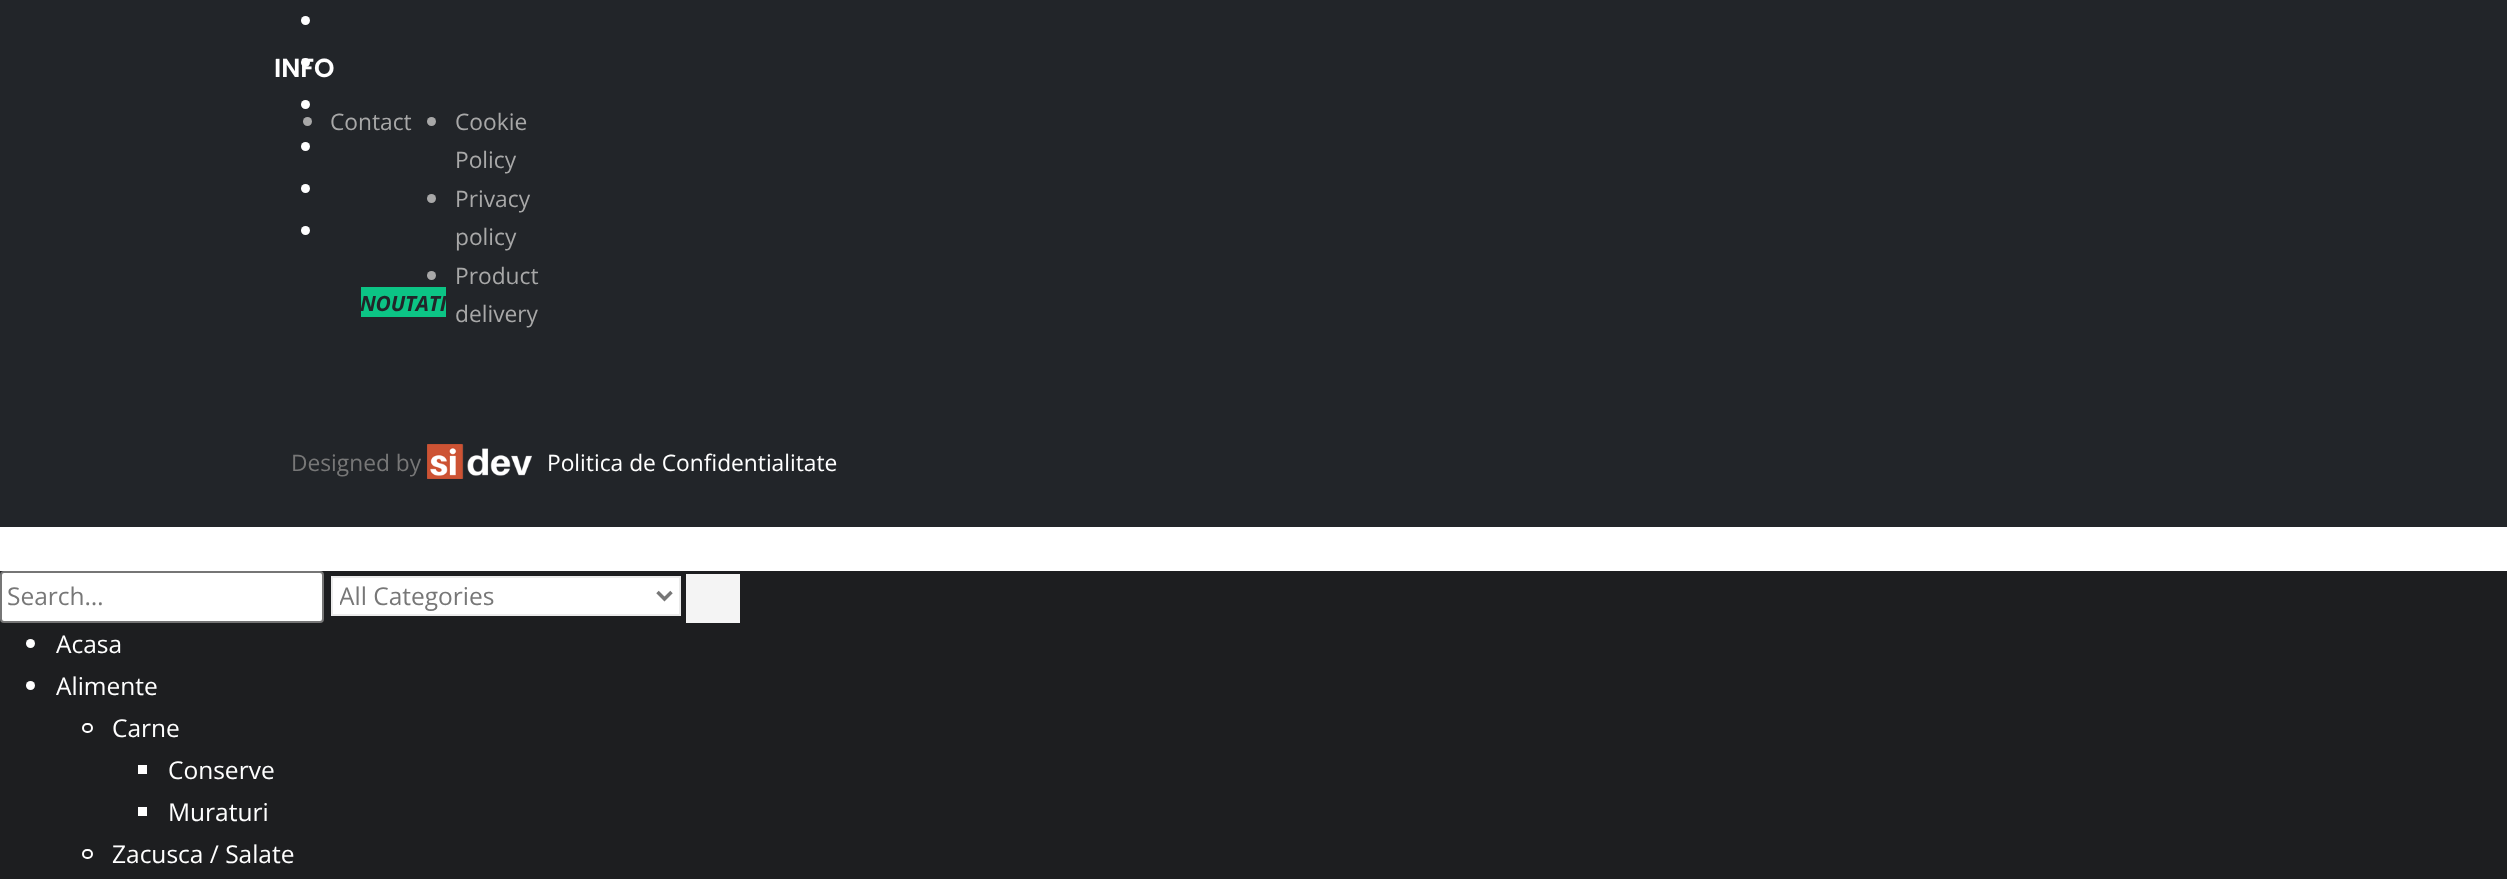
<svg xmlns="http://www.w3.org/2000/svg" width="2507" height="879">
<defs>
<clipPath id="clip1"><rect x="340" y="578" width="311" height="36"/></clipPath>
</defs>
<rect width="100%" height="100%" fill="#fff"/>
<rect width="2507" height="527" fill="#222529"/>
<circle cx="305.5" cy="62.5" r="4.5" fill="#fff"/>
<text x="274" y="77" style="font-family:Poppins;font-size:26px;font-weight:600;fill:#fff">INFO</text>
<circle cx="307.5" cy="121.5" r="4.5" fill="#a8a8a8"/>
<text x="330" y="130" style="font-family:Open Sans;font-size:22.75px;fill:#a8a8a8">Contact</text>
<circle cx="431.5" cy="121.5" r="4.5" fill="#a8a8a8"/>
<text x="455" y="130" style="font-family:Open Sans;font-size:22.75px;fill:#a8a8a8">Cookie</text>
<text x="455" y="168" style="font-family:Open Sans;font-size:22.75px;fill:#a8a8a8">Policy</text>
<circle cx="431.5" cy="198.5" r="4.5" fill="#a8a8a8"/>
<text x="455" y="207" style="font-family:Open Sans;font-size:22.75px;fill:#a8a8a8">Privacy</text>
<text x="455" y="245" style="font-family:Open Sans;font-size:22.75px;fill:#a8a8a8">policy</text>
<circle cx="431.5" cy="275.5" r="4.5" fill="#a8a8a8"/>
<text x="455" y="284" style="font-family:Open Sans;font-size:22.75px;fill:#a8a8a8">Product</text>
<text x="455" y="322" style="font-family:Open Sans;font-size:22.75px;fill:#a8a8a8">delivery</text>
<text x="291" y="471" style="font-family:Open Sans;font-size:22.75px;fill:#777">Designed by</text>
<image x="427" y="444" width="105" height="35" href="media/1.png"/>
<text x="547" y="471" style="font-family:Open Sans;font-size:22.75px;fill:#fff">Politica de Confidentialitate</text>
<circle cx="305.5" cy="20.5" r="4.5" fill="#fff"/>
<circle cx="305.5" cy="104.5" r="4.5" fill="#fff"/>
<circle cx="305.5" cy="146.5" r="4.5" fill="#fff"/>
<circle cx="305.5" cy="188.5" r="4.5" fill="#fff"/>
<circle cx="305.5" cy="230.5" r="4.5" fill="#fff"/>
<rect x="361" y="287" width="85" height="30" fill="#0cc485"/>
<text x="360" y="311" style="font-family:Open Sans;font-size:21px;font-weight:bold;font-style:italic;letter-spacing:-0.25px;fill:#222529">NOUTATI</text>
<rect y="571" width="2507" height="308" fill="#1d1e20"/>
<rect x="1" y="572" width="322" height="50" rx="3" fill="#fff" stroke="#767676" stroke-width="2"/>
<text x="7" y="605" style="font-family:Open Sans;font-size:24.5px;fill:#777">Search…</text>
<rect x="332" y="577" width="348" height="38" fill="#fff" stroke="#ebebeb" stroke-width="2"/>
<path d="M657.5 592l7 7l7-7" fill="none" stroke="#777" stroke-width="3.5"/>
<g clip-path="url(#clip1)">
<text x="339" y="605" style="font-family:Open Sans;font-size:24.5px;fill:#777">All Categories</text>
</g>
<rect x="686" y="574" width="54" height="49" fill="#f4f4f4"/>
<circle cx="30.5" cy="643.5" r="4.5" fill="#fff"/>
<text x="56" y="653" style="font-family:Open Sans;font-size:24.5px;fill:#fff">Acasa</text>
<circle cx="30.5" cy="685.5" r="4.5" fill="#fff"/>
<text x="56" y="695" style="font-family:Open Sans;font-size:24.5px;fill:#fff">Alimente</text>
<rect x="83" y="724" width="9" height="8" rx="4" fill="none" stroke="#fff" stroke-width="2"/>
<text x="112" y="737" style="font-family:Open Sans;font-size:24.5px;fill:#fff">Carne</text>
<rect x="138" y="765" width="9" height="9" fill="#fff"/>
<text x="168" y="779" style="font-family:Open Sans;font-size:24.5px;fill:#fff">Conserve</text>
<rect x="138" y="807" width="9" height="9" fill="#fff"/>
<text x="168" y="821" style="font-family:Open Sans;font-size:24.5px;fill:#fff">Muraturi</text>
<rect x="83" y="850" width="9" height="8" rx="4" fill="none" stroke="#fff" stroke-width="2"/>
<text x="112" y="863" style="font-family:Open Sans;font-size:24.5px;fill:#fff">Zacusca / Salate</text>
</svg>
